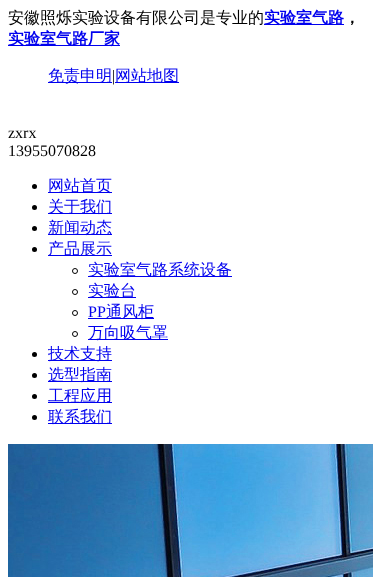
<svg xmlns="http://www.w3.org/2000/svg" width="373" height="577">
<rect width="100%" height="100%" fill="#fff"/>
<text x="8" y="23" style="font-family:WenQuanYi Zen Hei;font-size:16px;font-weight:500;fill:#000">安徽照烁实验设备有限公司是专业的</text>
<rect x="264" y="24" width="80" height="1" fill="#00e"/>
<text x="264" y="23" style="font-family:WenQuanYi Zen Hei;font-size:16px;font-weight:bold;fill:#00e">实验室气路</text>
<text x="344" y="23" style="font-family:WenQuanYi Zen Hei;font-size:16px;font-weight:bold;fill:#000">，</text>
<rect x="8" y="45" width="112" height="1" fill="#00e"/>
<text x="8" y="44" style="font-family:WenQuanYi Zen Hei;font-size:16px;font-weight:bold;fill:#00e">实验室气路厂家</text>
<rect x="48" y="82" width="64" height="1" fill="#00e"/>
<text x="48" y="81" style="font-family:WenQuanYi Zen Hei;font-size:16px;font-weight:500;fill:#00e">免责申明</text>
<text x="112" y="81" style="font-family:Liberation Serif;font-size:16px;fill:#000">|</text>
<rect x="115" y="82" width="64" height="1" fill="#00e"/>
<text x="115" y="81" style="font-family:WenQuanYi Zen Hei;font-size:16px;font-weight:500;fill:#00e">网站地图</text>
<text x="8" y="138" style="font-family:Liberation Serif;font-size:16px;fill:#000">zxrx</text>
<text x="8" y="156" style="font-family:Liberation Serif;font-size:16px;fill:#000">13955070828</text>
<circle cx="34.5" cy="186.5" r="2.5" fill="#000"/>
<rect x="48" y="192" width="64" height="1" fill="#00e"/>
<text x="48" y="191" style="font-family:WenQuanYi Zen Hei;font-size:16px;font-weight:500;fill:#00e">网站首页</text>
<circle cx="34.5" cy="207.5" r="2.5" fill="#000"/>
<rect x="48" y="213" width="64" height="1" fill="#00e"/>
<text x="48" y="212" style="font-family:WenQuanYi Zen Hei;font-size:16px;font-weight:500;fill:#00e">关于我们</text>
<circle cx="34.5" cy="228.5" r="2.5" fill="#000"/>
<rect x="48" y="234" width="64" height="1" fill="#00e"/>
<text x="48" y="233" style="font-family:WenQuanYi Zen Hei;font-size:16px;font-weight:500;fill:#00e">新闻动态</text>
<circle cx="34.5" cy="249.5" r="2.5" fill="#000"/>
<rect x="48" y="255" width="64" height="1" fill="#00e"/>
<text x="48" y="254" style="font-family:WenQuanYi Zen Hei;font-size:16px;font-weight:500;fill:#00e">产品展示</text>
<circle cx="75" cy="271" r="2.5" fill="none" stroke="#000"/>
<rect x="88" y="276" width="144" height="1" fill="#00e"/>
<text x="88" y="275" style="font-family:WenQuanYi Zen Hei;font-size:16px;font-weight:500;fill:#00e">实验室气路系统设备</text>
<circle cx="75" cy="292" r="2.5" fill="none" stroke="#000"/>
<rect x="88" y="297" width="48" height="1" fill="#00e"/>
<text x="88" y="296" style="font-family:WenQuanYi Zen Hei;font-size:16px;font-weight:500;fill:#00e">实验台</text>
<circle cx="75" cy="313" r="2.5" fill="none" stroke="#000"/>
<text x="88" y="317" style="font-family:Liberation Serif;font-size:16px;fill:#00e">PP</text>
<rect x="88" y="318" width="66" height="1" fill="#00e"/>
<text x="106" y="317" style="font-family:WenQuanYi Zen Hei;font-size:16px;font-weight:500;fill:#00e">通风柜</text>
<circle cx="75" cy="334" r="2.5" fill="none" stroke="#000"/>
<rect x="88" y="339" width="80" height="1" fill="#00e"/>
<text x="88" y="338" style="font-family:WenQuanYi Zen Hei;font-size:16px;font-weight:500;fill:#00e">万向吸气罩</text>
<circle cx="34.5" cy="354.5" r="2.5" fill="#000"/>
<rect x="48" y="360" width="64" height="1" fill="#00e"/>
<text x="48" y="359" style="font-family:WenQuanYi Zen Hei;font-size:16px;font-weight:500;fill:#00e">技术支持</text>
<circle cx="34.5" cy="375.5" r="2.5" fill="#000"/>
<rect x="48" y="381" width="64" height="1" fill="#00e"/>
<text x="48" y="380" style="font-family:WenQuanYi Zen Hei;font-size:16px;font-weight:500;fill:#00e">选型指南</text>
<circle cx="34.5" cy="396.5" r="2.5" fill="#000"/>
<rect x="48" y="402" width="64" height="1" fill="#00e"/>
<text x="48" y="401" style="font-family:WenQuanYi Zen Hei;font-size:16px;font-weight:500;fill:#00e">工程应用</text>
<circle cx="34.5" cy="417.5" r="2.5" fill="#000"/>
<rect x="48" y="423" width="64" height="1" fill="#00e"/>
<text x="48" y="422" style="font-family:WenQuanYi Zen Hei;font-size:16px;font-weight:500;fill:#00e">联系我们</text>
<image x="8" y="444" width="365" height="133" href="media/1.png"/>
</svg>
